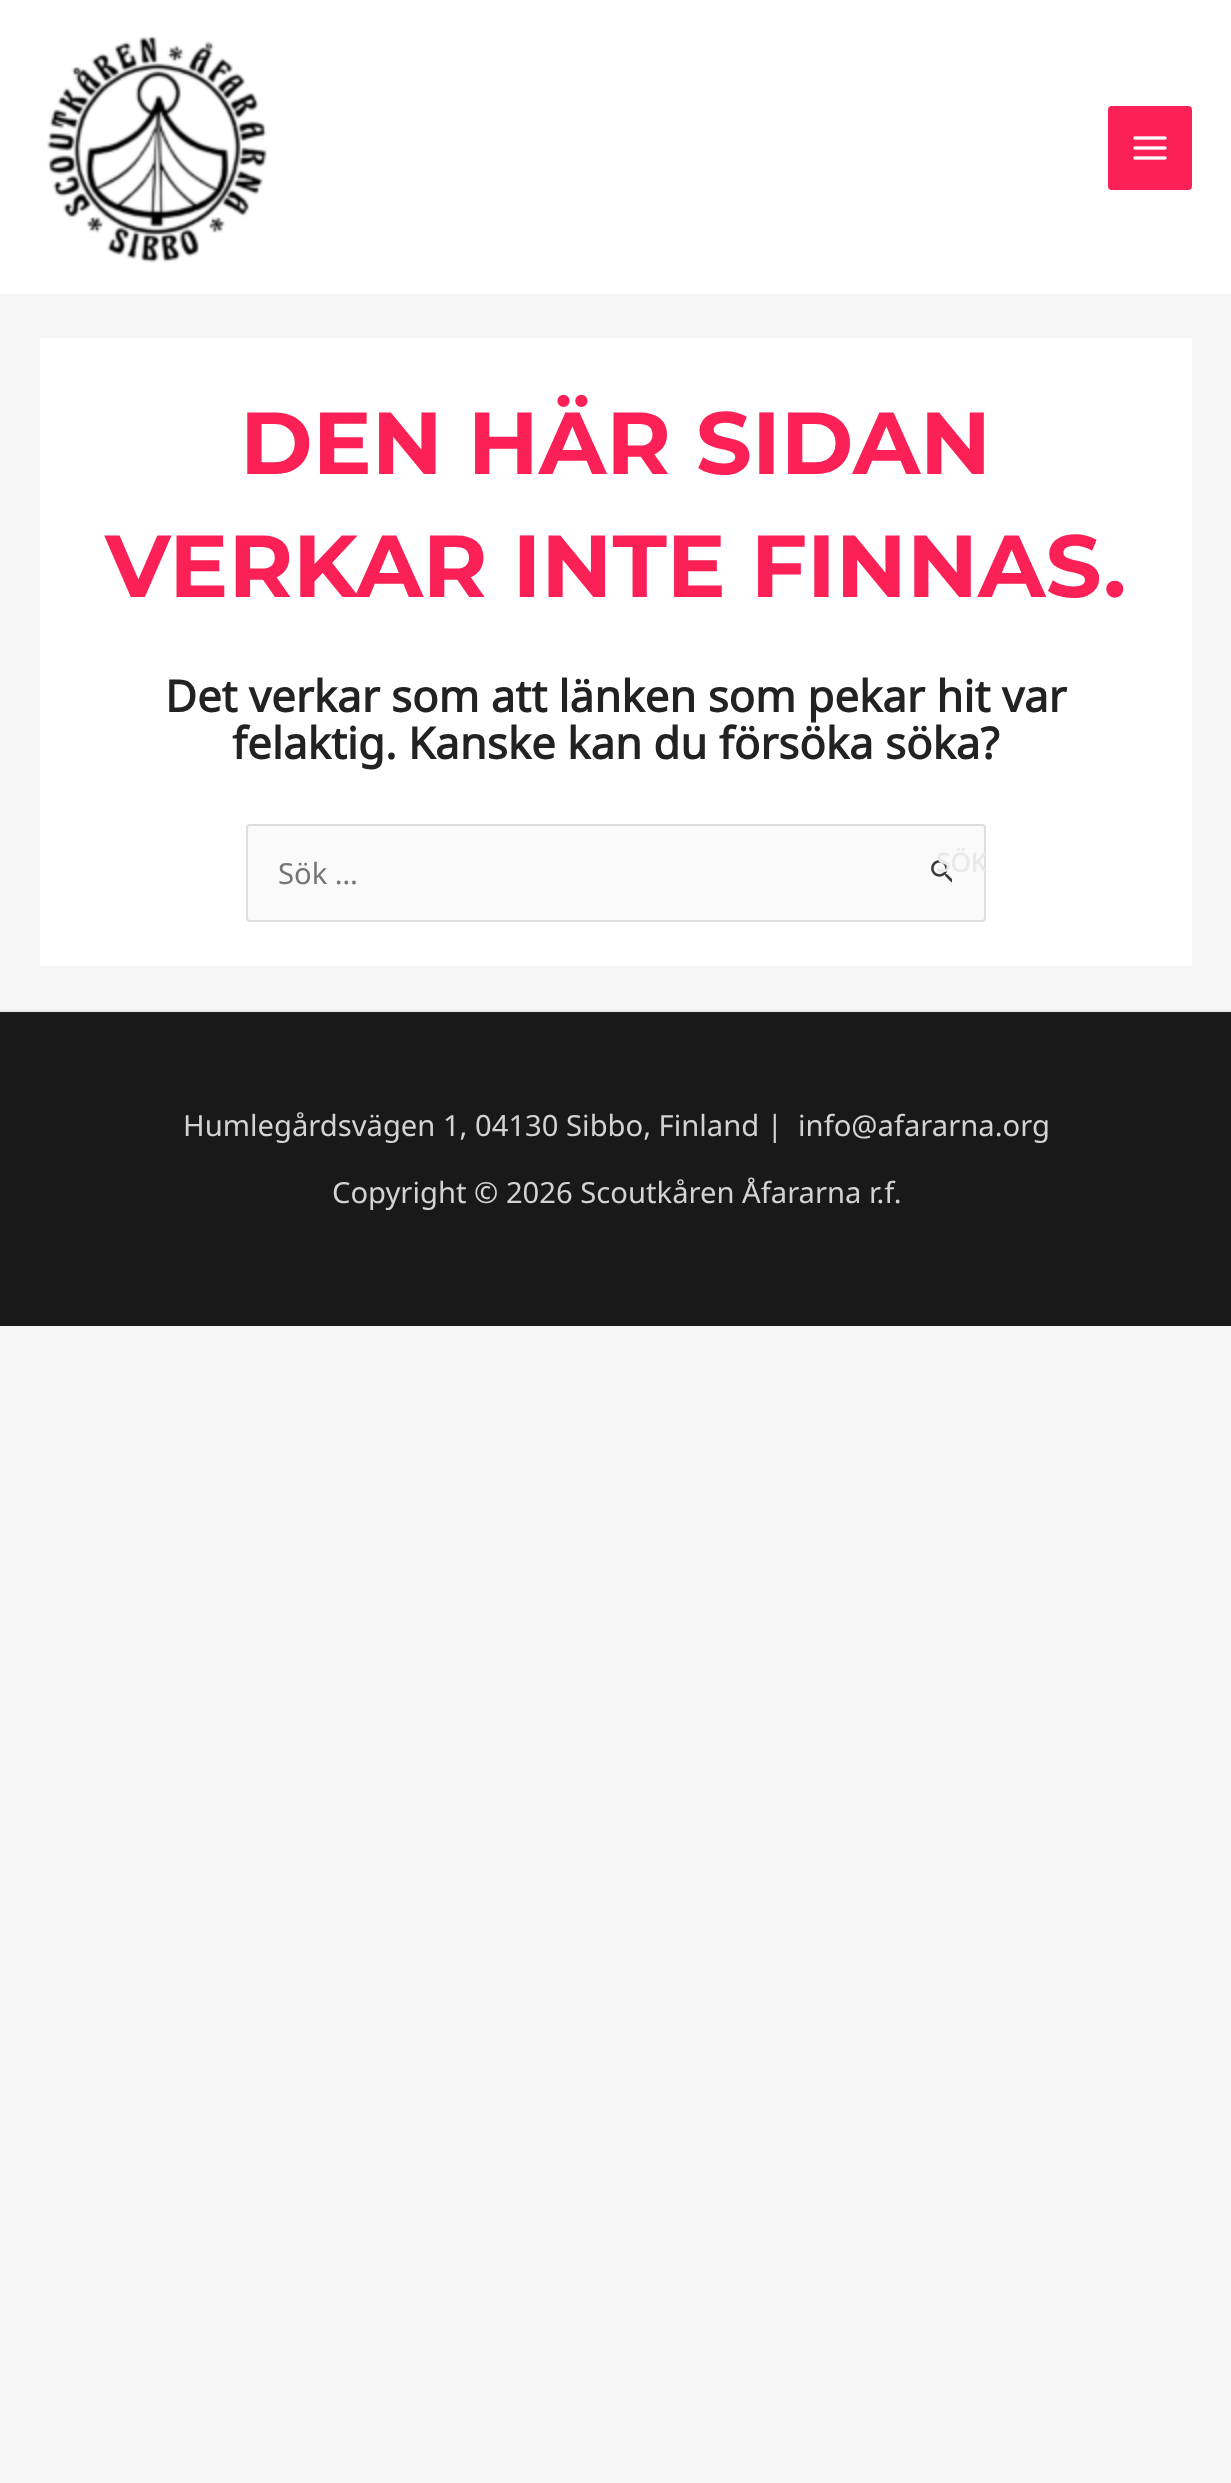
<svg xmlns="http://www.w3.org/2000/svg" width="1231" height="2483">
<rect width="100%" height="100%" fill="#f5f5f5"/>
<rect width="1231" height="294" fill="#fff"/>
<image x="47" y="35" width="220" height="228" href="media/1.png"/>
<rect x="1108" y="106" width="84" height="84" rx="4" fill="#fb2056"/>
<image x="1133" y="136" width="34" height="24" href="media/2.png"/>
<rect x="40" y="338" width="1152" height="628" fill="#fff"/>
<text x="240" y="474" style="font-family:Montserrat;font-size:88px;font-weight:100;fill:#fb2056">DEN HÄR SIDAN</text>
<text x="105" y="597" style="font-family:Montserrat;font-size:88px;font-weight:100;fill:#fb2056">VERKAR INTE FINNAS.</text>
<text x="165" y="712" style="font-family:Noto Sans;font-size:43.75px;font-weight:bold;fill:#222">Det verkar som att länken som pekar hit var</text>
<text x="232" y="759" style="font-family:Noto Sans;font-size:43.75px;font-weight:bold;fill:#222">felaktig. Kanske kan du försöka söka?</text>
<rect x="247" y="825" width="738" height="96" rx="3" fill="#fafafa" stroke="#ddd" stroke-width="2"/>
<text x="278" y="884" style="font-family:Noto Sans;font-size:29.2px;fill:#757575">Sök …</text>
<image x="931" y="860" width="21" height="23" href="media/3.png"/>
<text x="936" y="872" style="font-family:Noto Sans;font-size:26px;font-weight:bold;fill:#e9e9e9">SÖK</text>
<rect y="1012" width="1231" height="314" fill="#191919"/>
<rect y="1010" width="1231" height="2" fill="#e6e6e6"/>
<text x="183" y="1136" style="font-family:Noto Sans;font-size:29.2px;fill:#d3d3d3" xml:space="preserve">Humlegårdsvägen 1, 04130 Sibbo, Finland |  info@afararna.org</text>
<text x="332" y="1203" style="font-family:Noto Sans;font-size:29.2px;fill:#d3d3d3">Copyright © 2026 Scoutkåren Åfararna r.f.</text>
</svg>
